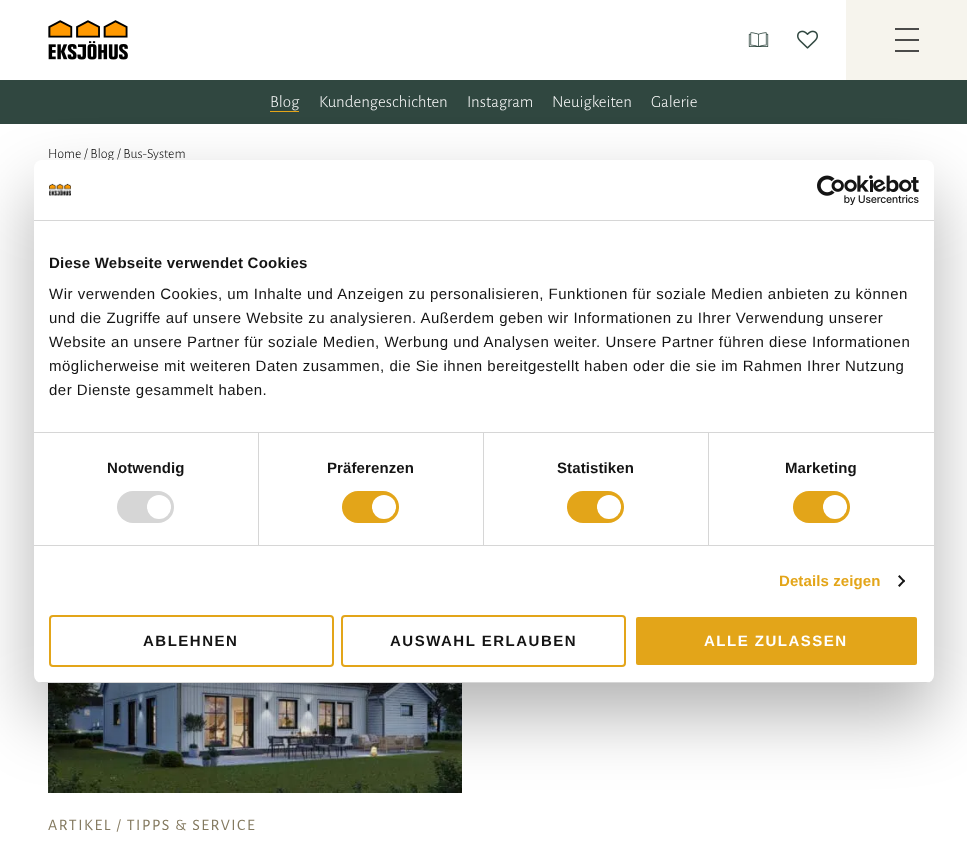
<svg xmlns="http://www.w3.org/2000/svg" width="967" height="843">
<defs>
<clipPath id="clip1"><rect x="34" y="160" width="900" height="523" rx="8"/></clipPath>
</defs>
<rect width="100%" height="100%" fill="#fff"/>
<image x="48" y="20" width="80" height="40" href="media/1.png"/>
<image x="748" y="32" width="21" height="15" href="media/2.png"/>
<image x="797" y="30" width="21" height="19" href="media/3.png"/>
<rect x="846" width="121" height="80" fill="#f6f4ed"/>
<rect x="895" y="39" width="24" height="2" fill="#4b4b4a"/>
<rect x="895" y="28" width="24" height="2" fill="#4b4b4a"/>
<rect x="895" y="50" width="24" height="2" fill="#4b4b4a"/>
<rect y="80" width="967" height="44" fill="#304740"/>
<text x="270" y="107" style="font-family:Alegreya Sans;font-size:17px;font-weight:300;fill:#fff">Blog</text>
<rect x="270" y="111" width="29" height="1" fill="#e3a519"/>
<text x="319" y="107" style="font-family:Alegreya Sans;font-size:17px;font-weight:300;fill:#fff">Kundengeschichten</text>
<text x="467" y="107" style="font-family:Alegreya Sans;font-size:17px;font-weight:300;fill:#fff">Instagram</text>
<text x="552" y="107" style="font-family:Alegreya Sans;font-size:17px;font-weight:300;fill:#fff">Neuigkeiten</text>
<text x="651" y="107" style="font-family:Alegreya Sans;font-size:17px;font-weight:300;fill:#fff">Galerie</text>
<text x="48" y="158" style="font-family:Alegreya Sans;font-size:14px;font-weight:300;fill:#000">Home / Blog / Bus-System</text>
<image x="48" y="683" width="414" height="110" href="media/6.png"/>
<rect x="34" y="192" width="900" height="523" rx="8" fill="#0000004d" filter="blur(34px)"/>
<rect x="34" y="160" width="900" height="523" rx="8" fill="#fff"/>
<rect x="34" y="220" width="900" height="1" fill="#d6d6d6"/>
<image x="49" y="183" width="22" height="13" href="media/4.png"/>
<image x="817" y="175" width="102" height="30" href="media/5.png"/>
<rect x="34" y="432" width="900" height="1" fill="#d6d6d6"/>
<text x="49" y="268" style="font-family:Liberation Sans;font-size:15px;font-weight:bold;letter-spacing:0.25px;fill:#141414">Diese Webseite verwendet Cookies</text>
<text x="49" y="299" style="font-family:Liberation Sans;font-size:15px;letter-spacing:0.5px;fill:#141414">Wir verwenden Cookies, um Inhalte und Anzeigen zu personalisieren, Funktionen für soziale Medien anbieten zu können</text>
<text x="49" y="323" style="font-family:Liberation Sans;font-size:15px;letter-spacing:0.5px;fill:#141414">und die Zugriffe auf unsere Website zu analysieren. Außerdem geben wir Informationen zu Ihrer Verwendung unserer</text>
<text x="49" y="347" style="font-family:Liberation Sans;font-size:15px;letter-spacing:0.5px;fill:#141414">Website an unsere Partner für soziale Medien, Werbung und Analysen weiter. Unsere Partner führen diese Informationen</text>
<text x="49" y="371" style="font-family:Liberation Sans;font-size:15px;letter-spacing:0.5px;fill:#141414">möglicherweise mit weiteren Daten zusammen, die Sie ihnen bereitgestellt haben oder die sie im Rahmen Ihrer Nutzung</text>
<text x="49" y="395" style="font-family:Liberation Sans;font-size:15px;letter-spacing:0.5px;fill:#141414">der Dienste gesammelt haben.</text>
<rect x="34" y="545" width="900" height="1" fill="#d6d6d6"/>
<rect x="258" y="433" width="1" height="112" fill="#d6d6d6"/>
<text x="107" y="473" style="font-family:Liberation Sans;font-size:15px;font-weight:bold;letter-spacing:0.1px;fill:#141414">Notwendig</text>
<rect x="117" y="491" width="57" height="32" rx="16" fill="#d6d6d6"/>
<circle cx="159" cy="507" r="12" fill="#fff"/>
<rect x="483" y="433" width="1" height="112" fill="#d6d6d6"/>
<text x="327" y="473" style="font-family:Liberation Sans;font-size:15px;font-weight:bold;letter-spacing:0.1px;fill:#141414">Präferenzen</text>
<rect x="342" y="491" width="57" height="32" rx="16" fill="#e3a519"/>
<circle cx="384" cy="507" r="12" fill="#fff"/>
<rect x="708" y="433" width="1" height="112" fill="#d6d6d6"/>
<text x="557" y="473" style="font-family:Liberation Sans;font-size:15px;font-weight:bold;letter-spacing:0.1px;fill:#141414">Statistiken</text>
<rect x="567" y="491" width="57" height="32" rx="16" fill="#e3a519"/>
<circle cx="609" cy="507" r="12" fill="#fff"/>
<text x="785" y="473" style="font-family:Liberation Sans;font-size:15px;font-weight:bold;letter-spacing:0.1px;fill:#141414">Marketing</text>
<rect x="793" y="491" width="57" height="32" rx="16" fill="#e3a519"/>
<circle cx="835" cy="507" r="12" fill="#fff"/>
<text x="779" y="586" style="font-family:Liberation Sans;font-size:15px;font-weight:bold;letter-spacing:0.1px;fill:#e3a519">Details zeigen</text>
<path d="M899.5 575l5.5 6l-1 1.5l-6-6z" fill="#141414"/>
<path d="M904 579.5l1 1.5l-5.5 6l-1.5-1.5z" fill="#141414"/>
<g clip-path="url(#clip1)">
<rect x="34" y="682" width="900" height="1" fill="#d6d6d6"/>
</g>
<rect x="50" y="616" width="283" height="50" rx="3" fill="none" stroke="#e3a519" stroke-width="2"/>
<text x="143" y="646" style="font-family:Liberation Sans;font-size:15px;font-weight:bold;letter-spacing:1.5px;fill:#141414">ABLEHNEN</text>
<rect x="342" y="616" width="283" height="50" rx="3" fill="none" stroke="#e3a519" stroke-width="2"/>
<text x="390" y="646" style="font-family:Liberation Sans;font-size:15px;font-weight:bold;letter-spacing:1.5px;fill:#141414">AUSWAHL ERLAUBEN</text>
<rect x="635" y="616" width="283" height="50" rx="3" fill="#e3a519" stroke="#fff" stroke-width="2"/>
<text x="704" y="646" style="font-family:Liberation Sans;font-size:15px;font-weight:bold;letter-spacing:1.5px;fill:#fff">ALLE ZULASSEN</text>
<text x="48" y="830" style="font-family:Alegreya Sans;font-size:16px;letter-spacing:1.6px;fill:#83795f">ARTIKEL / TIPPS &amp; SERVICE</text>
</svg>
